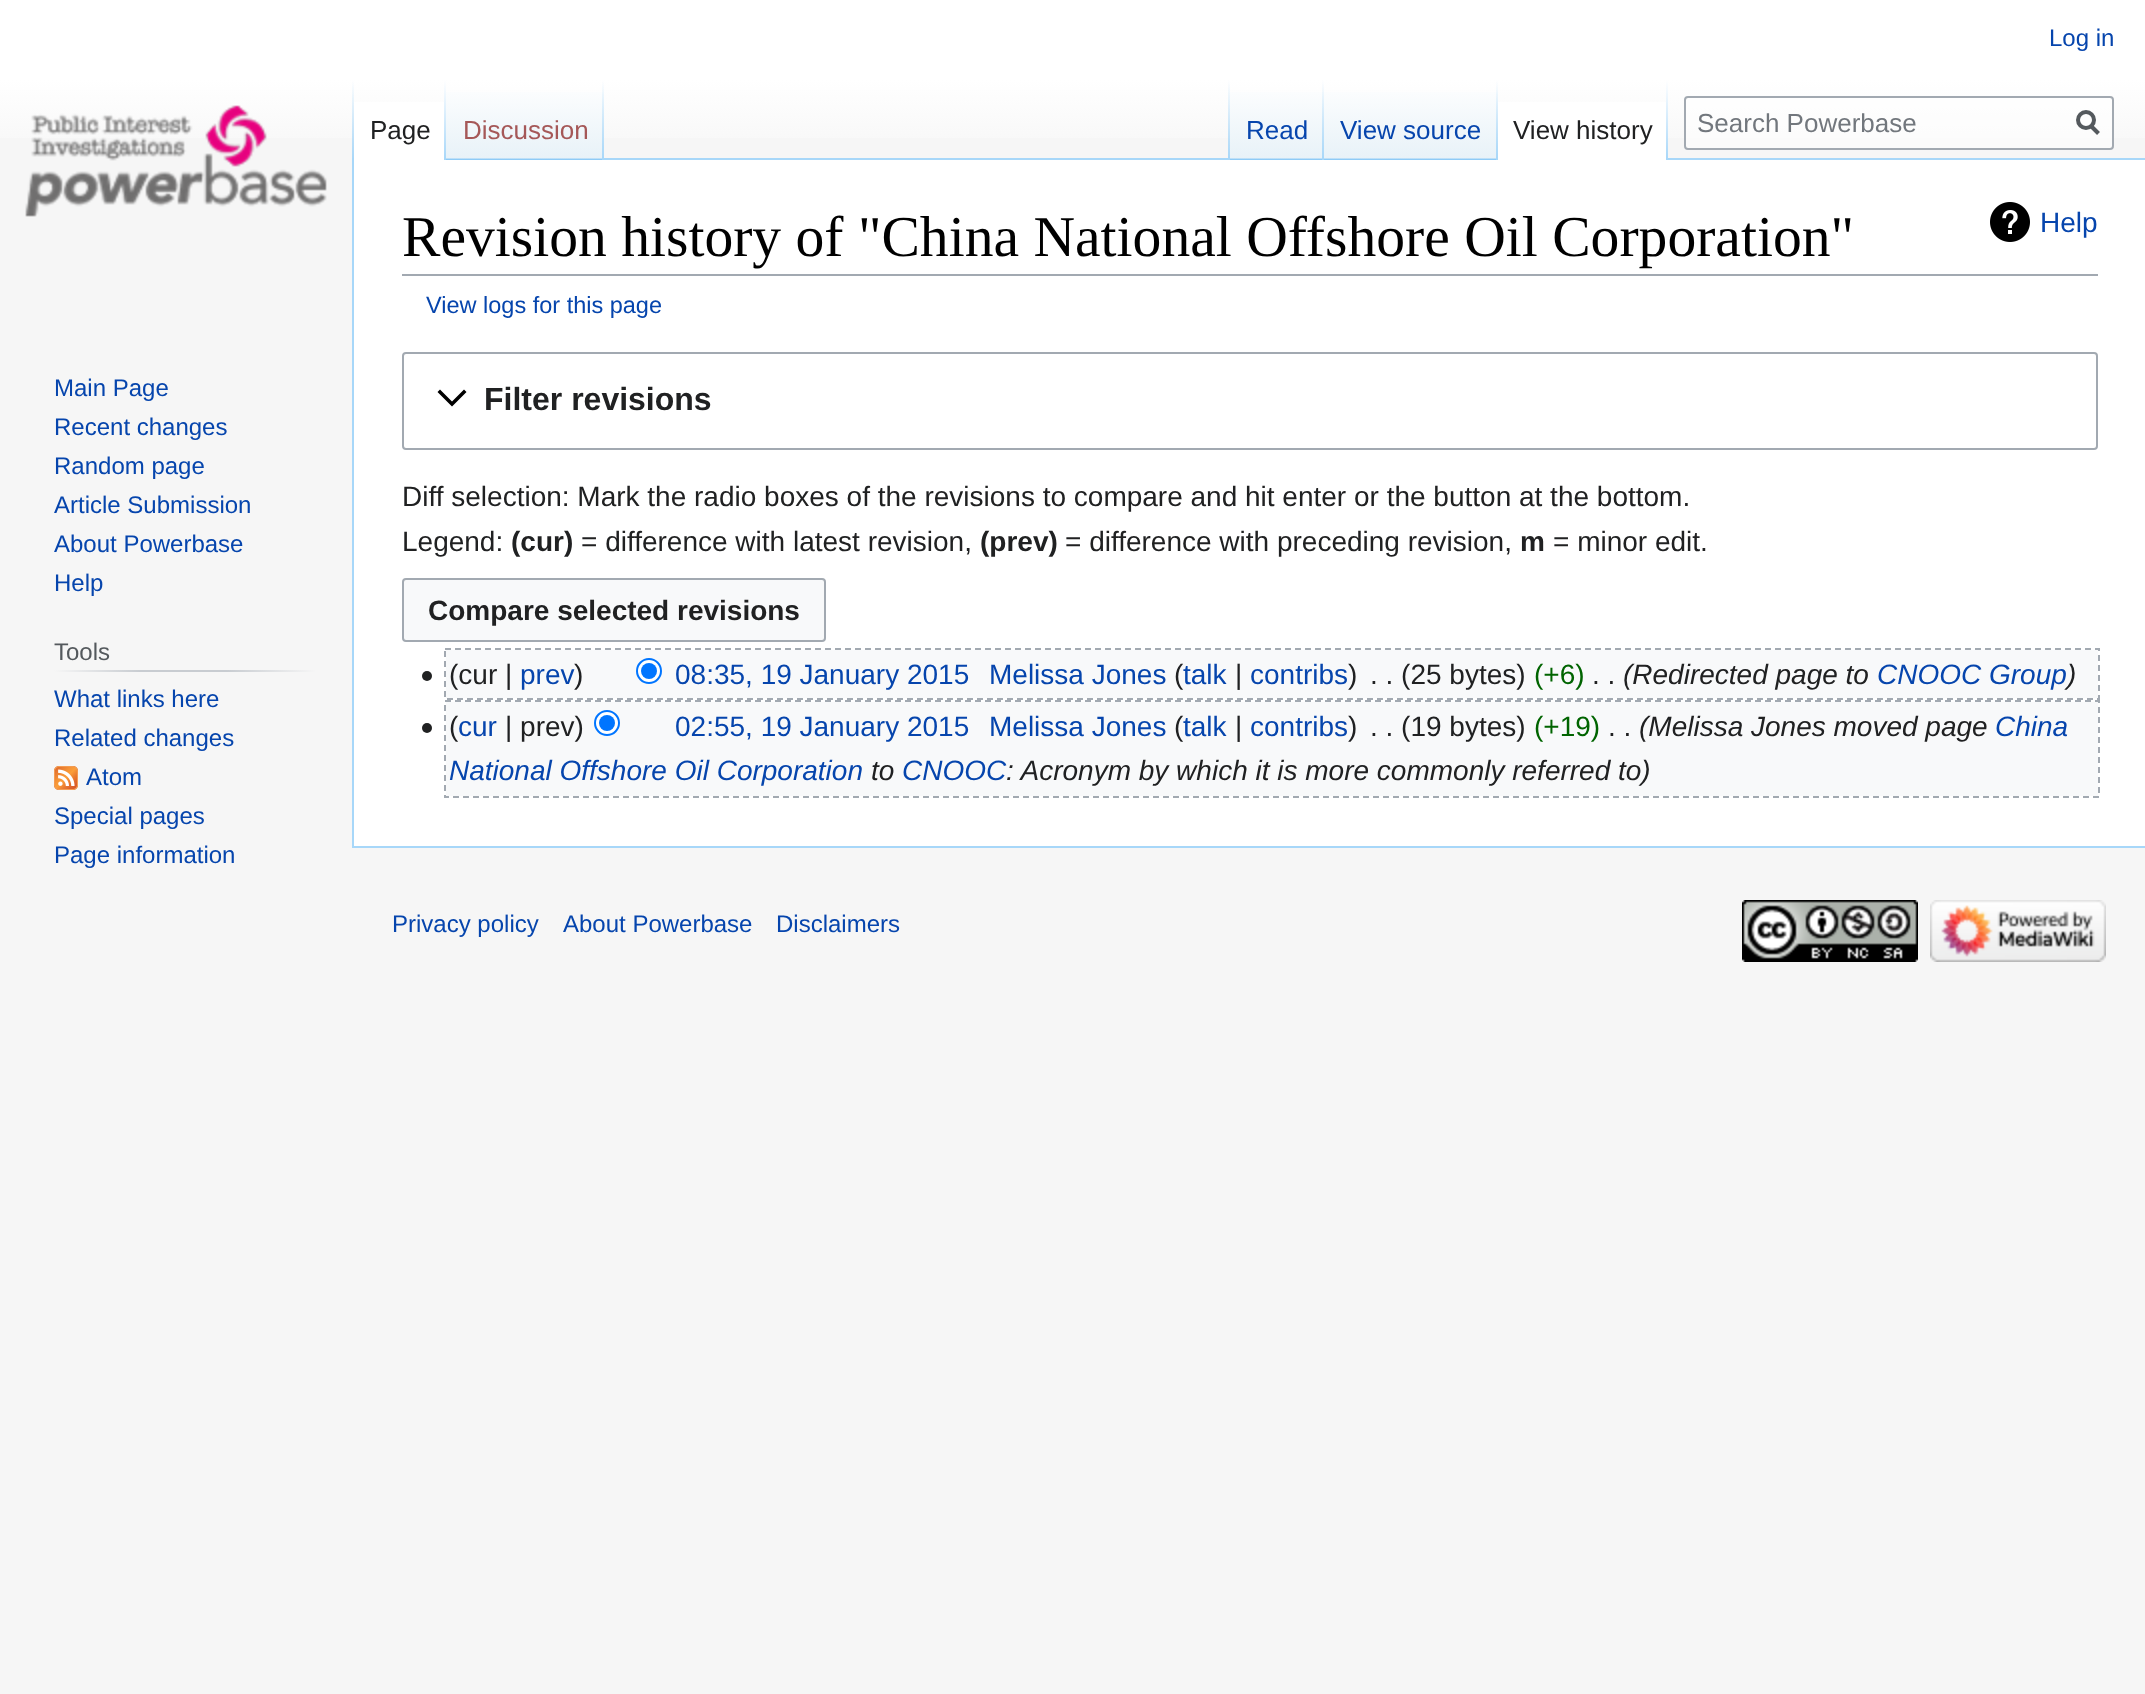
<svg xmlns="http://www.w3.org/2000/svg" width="2145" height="1694">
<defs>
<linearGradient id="g1" gradientUnits="userSpaceOnUse" x1="1073" y1="0" x2="1073" y2="160"><stop offset="0.5" stop-color="#fff"/><stop offset="1" stop-color="#f6f6f6"/></linearGradient>
<linearGradient id="g2" gradientUnits="userSpaceOnUse" x1="353" y1="80" x2="353" y2="160"><stop offset="0" stop-color="#a7d7f9" stop-opacity="0"/><stop offset="1" stop-color="#a7d7f9"/></linearGradient>
<linearGradient id="g3" gradientUnits="userSpaceOnUse" x1="445" y1="80" x2="445" y2="160"><stop offset="0" stop-color="#fff"/><stop offset="1" stop-color="#a7d7f9"/></linearGradient>
<linearGradient id="g4" gradientUnits="userSpaceOnUse" x1="525" y1="160" x2="525" y2="80"><stop offset="0" stop-color="#77c1f6"/><stop offset="0.03" stop-color="#e8f2f8"/><stop offset="1" stop-color="#fff"/></linearGradient>
<linearGradient id="g5" gradientUnits="userSpaceOnUse" x1="603" y1="80" x2="603" y2="160"><stop offset="0" stop-color="#a7d7f9" stop-opacity="0"/><stop offset="1" stop-color="#a7d7f9"/></linearGradient>
<linearGradient id="g6" gradientUnits="userSpaceOnUse" x1="1229" y1="80" x2="1229" y2="160"><stop offset="0" stop-color="#a7d7f9" stop-opacity="0"/><stop offset="1" stop-color="#a7d7f9"/></linearGradient>
<linearGradient id="g7" gradientUnits="userSpaceOnUse" x1="1277" y1="160" x2="1277" y2="80"><stop offset="0" stop-color="#77c1f6"/><stop offset="0.03" stop-color="#e8f2f8"/><stop offset="1" stop-color="#fff"/></linearGradient>
<linearGradient id="g8" gradientUnits="userSpaceOnUse" x1="1323" y1="80" x2="1323" y2="160"><stop offset="0" stop-color="#a7d7f9" stop-opacity="0"/><stop offset="1" stop-color="#a7d7f9"/></linearGradient>
<linearGradient id="g9" gradientUnits="userSpaceOnUse" x1="1411" y1="160" x2="1411" y2="80"><stop offset="0" stop-color="#77c1f6"/><stop offset="0.03" stop-color="#e8f2f8"/><stop offset="1" stop-color="#fff"/></linearGradient>
<linearGradient id="g10" gradientUnits="userSpaceOnUse" x1="1497" y1="80" x2="1497" y2="160"><stop offset="0" stop-color="#a7d7f9" stop-opacity="0"/><stop offset="1" stop-color="#a7d7f9"/></linearGradient>
<linearGradient id="g11" gradientUnits="userSpaceOnUse" x1="1667" y1="80" x2="1667" y2="160"><stop offset="0" stop-color="#fff"/><stop offset="1" stop-color="#a7d7f9"/></linearGradient>
<linearGradient id="g12" gradientUnits="userSpaceOnUse" x1="54" y1="671" x2="316" y2="671"><stop offset="0" stop-color="#f6f6f6"/><stop offset="0.33" stop-color="#c8ccd1"/><stop offset="0.66" stop-color="#c8ccd1"/><stop offset="1" stop-color="#f6f6f6"/></linearGradient>
</defs>
<rect width="100%" height="100%" fill="#f6f6f6"/>
<rect width="2145" height="138" fill="url(#g1)"/>
<text x="2049" y="46" style="font-family:Liberation Sans;font-size:24px;fill:#0645ad">Log in</text>
<rect x="352" y="846" width="1793" height="2" fill="#a7d7f9"/>
<rect x="352" y="158" width="2" height="690" fill="#a7d7f9"/>
<rect x="352" y="80" width="2" height="80" fill="url(#g2)"/>
<rect x="354" y="102" width="90" height="58" fill="#fff"/>
<rect x="444" y="80" width="2" height="80" fill="url(#g3)"/>
<text x="370" y="139" style="font-family:Liberation Sans;font-size:26px;fill:#202122">Page</text>
<rect x="446" y="92" width="158" height="68" fill="url(#g4)"/>
<rect x="602" y="80" width="2" height="80" fill="url(#g5)"/>
<text x="463" y="139" style="font-family:Liberation Sans;font-size:26px;fill:#a55858">Discussion</text>
<rect x="604" y="158" width="1541" height="2" fill="#a7d7f9"/>
<rect x="1228" y="80" width="2" height="80" fill="url(#g6)"/>
<rect x="1230" y="92" width="94" height="68" fill="url(#g7)"/>
<rect x="1322" y="80" width="2" height="80" fill="url(#g8)"/>
<text x="1246" y="139" style="font-family:Liberation Sans;font-size:26px;fill:#0645ad">Read</text>
<rect x="1324" y="92" width="174" height="68" fill="url(#g9)"/>
<rect x="1496" y="80" width="2" height="80" fill="url(#g10)"/>
<text x="1340" y="139" style="font-family:Liberation Sans;font-size:26px;fill:#0645ad">View source</text>
<rect x="1498" y="102" width="168" height="58" fill="#fff"/>
<rect x="1666" y="80" width="2" height="80" fill="url(#g11)"/>
<text x="1513" y="139" style="font-family:Liberation Sans;font-size:26px;fill:#202122">View history</text>
<rect x="1685" y="97" width="428" height="52" rx="3" fill="#ffffff80" stroke="#a2a9b1" stroke-width="2"/>
<text x="1697" y="132" style="font-family:Liberation Sans;font-size:26px;fill:#72777d">Search Powerbase</text>
<path d="M2098.5 133.5l-8-8" fill="none" stroke="#54595d" stroke-width="4"/>
<circle cx="2086" cy="120" r="8" fill="none" stroke="#54595d" stroke-width="4"/>
<image x="25" y="105" width="302" height="112" href="media/1.png"/>
<text x="54" y="396" style="font-family:Liberation Sans;font-size:24px;fill:#0645ad">Main Page</text>
<text x="54" y="435" style="font-family:Liberation Sans;font-size:24px;fill:#0645ad">Recent changes</text>
<text x="54" y="474" style="font-family:Liberation Sans;font-size:24px;fill:#0645ad">Random page</text>
<text x="54" y="513" style="font-family:Liberation Sans;font-size:24px;fill:#0645ad">Article Submission</text>
<text x="54" y="552" style="font-family:Liberation Sans;font-size:24px;fill:#0645ad">About Powerbase</text>
<text x="54" y="591" style="font-family:Liberation Sans;font-size:24px;fill:#0645ad">Help</text>
<rect x="54" y="670" width="262" height="2" fill="url(#g12)"/>
<text x="54" y="660" style="font-family:Liberation Sans;font-size:24px;fill:#54595d">Tools</text>
<text x="54" y="707" style="font-family:Liberation Sans;font-size:24px;fill:#0645ad">What links here</text>
<text x="54" y="746" style="font-family:Liberation Sans;font-size:24px;fill:#0645ad">Related changes</text>
<image x="54" y="766" width="24" height="24" href="media/2.png"/>
<text x="86" y="785" style="font-family:Liberation Sans;font-size:24px;fill:#0645ad">Atom</text>
<text x="54" y="824" style="font-family:Liberation Sans;font-size:24px;fill:#0645ad">Special pages</text>
<text x="54" y="863" style="font-family:Liberation Sans;font-size:24px;fill:#0645ad">Page information</text>
<rect x="354" y="160" width="1791" height="686" fill="#fff"/>
<rect x="402" y="274" width="1696" height="2" fill="#a2a9b1"/>
<text x="402" y="256" style="font-family:Liberation Serif;font-size:57.6px;fill:#000">Revision history of "China National Offshore Oil Corporation"</text>
<image x="1990" y="202" width="40" height="40" href="media/3.png"/>
<text x="2040" y="232" style="font-family:Liberation Sans;font-size:28px;fill:#0645ad">Help</text>
<text x="426" y="313" style="font-family:Liberation Sans;font-size:23.5px;fill:#0645ad">View logs for this page</text>
<rect x="403" y="353" width="1694" height="96" rx="3" fill="none" stroke="#a2a9b1" stroke-width="2"/>
<path d="M464 389.5l-12 12l-12-12l-2.5 2.5l14.5 14.5l14.5-14.5z" fill="#000"/>
<text x="484" y="410" style="font-family:Liberation Sans;font-size:32px;font-weight:bold;fill:#202122">Filter revisions</text>
<text x="402" y="506" style="font-family:Liberation Sans;font-size:28px;fill:#202122">Diff selection: Mark the radio boxes of the revisions to compare and hit enter or the button at the bottom.</text>
<text x="402" y="551" style="font-family:Liberation Sans;font-size:28px;fill:#202122">Legend:</text>
<text x="511" y="551" style="font-family:Liberation Sans;font-size:28px;font-weight:bold;fill:#202122">(cur)</text>
<text x="581" y="551" style="font-family:Liberation Sans;font-size:28px;fill:#202122">= difference with latest revision,</text>
<text x="980" y="551" style="font-family:Liberation Sans;font-size:28px;font-weight:bold;fill:#202122">(prev)</text>
<text x="1065" y="551" style="font-family:Liberation Sans;font-size:28px;fill:#202122">= difference with preceding revision,</text>
<text x="1520" y="551" style="font-family:Liberation Sans;font-size:28px;font-weight:bold;fill:#202122">m</text>
<text x="1553" y="551" style="font-family:Liberation Sans;font-size:28px;fill:#202122">= minor edit.</text>
<rect x="403" y="579" width="422" height="62" rx="3" fill="#f8f9fa" stroke="#a2a9b1" stroke-width="2"/>
<text x="428" y="620" style="font-family:Liberation Sans;font-size:28px;font-weight:bold;fill:#202122">Compare selected revisions</text>
<rect x="446" y="650" width="1652" height="48" fill="#f8f9fa"/>
<image x="422" y="671" width="10" height="10" href="media/4.png"/>
<text x="449" y="684" style="font-family:Liberation Sans;font-size:28px;fill:#202122">(cur |</text>
<text x="520" y="684" style="font-family:Liberation Sans;font-size:28px;fill:#0645ad">prev</text>
<text x="574" y="684" style="font-family:Liberation Sans;font-size:28px;fill:#202122">)</text>
<circle cx="649" cy="671" r="12" fill="#fff" stroke="#0075ff" stroke-width="2"/>
<circle cx="649" cy="671" r="8" fill="#0075ff"/>
<text x="675" y="684" style="font-family:Liberation Sans;font-size:28px;fill:#0645ad">08:35, 19 January 2015</text>
<text x="989" y="684" style="font-family:Liberation Sans;font-size:28px;fill:#0645ad">Melissa Jones</text>
<text x="1174" y="684" style="font-family:Liberation Sans;font-size:28px;fill:#202122">(</text>
<text x="1183" y="684" style="font-family:Liberation Sans;font-size:28px;fill:#0645ad">talk</text>
<text x="1235" y="684" style="font-family:Liberation Sans;font-size:28px;fill:#202122">|</text>
<text x="1250" y="684" style="font-family:Liberation Sans;font-size:28px;fill:#0645ad">contribs</text>
<text x="1348" y="684" style="font-family:Liberation Sans;font-size:28px;fill:#202122">)</text>
<text x="1370" y="684" style="font-family:Liberation Sans;font-size:28px;fill:#202122">. . (25 bytes)</text>
<text x="1534" y="684" style="font-family:Liberation Sans;font-size:28px;fill:#006400">(+6)</text>
<text x="1592" y="684" style="font-family:Liberation Sans;font-size:28px;fill:#202122">. .</text>
<text x="1623" y="684" style="font-family:Liberation Sans;font-size:28px;font-style:italic;fill:#202122">(Redirected page to</text>
<text x="1877" y="684" style="font-family:Liberation Sans;font-size:28px;font-style:italic;fill:#0645ad">CNOOC Group</text>
<text x="2067" y="684" style="font-family:Liberation Sans;font-size:28px;font-style:italic;fill:#202122">)</text>
<path d="M445 649h1654v50h-1654z" fill="none" stroke="#a2a9b1" stroke-width="2" stroke-dasharray="6 4"/>
<rect x="446" y="702" width="1652" height="94" fill="#f8f9fa"/>
<image x="422" y="723" width="10" height="10" href="media/4.png"/>
<text x="449" y="736" style="font-family:Liberation Sans;font-size:28px;fill:#202122">(</text>
<text x="458" y="736" style="font-family:Liberation Sans;font-size:28px;fill:#0645ad">cur</text>
<text x="505" y="736" style="font-family:Liberation Sans;font-size:28px;fill:#202122">| prev)</text>
<circle cx="607" cy="723" r="12" fill="#fff" stroke="#0075ff" stroke-width="2"/>
<circle cx="607" cy="723" r="8" fill="#0075ff"/>
<text x="675" y="736" style="font-family:Liberation Sans;font-size:28px;fill:#0645ad">02:55, 19 January 2015</text>
<text x="989" y="736" style="font-family:Liberation Sans;font-size:28px;fill:#0645ad">Melissa Jones</text>
<text x="1174" y="736" style="font-family:Liberation Sans;font-size:28px;fill:#202122">(</text>
<text x="1183" y="736" style="font-family:Liberation Sans;font-size:28px;fill:#0645ad">talk</text>
<text x="1235" y="736" style="font-family:Liberation Sans;font-size:28px;fill:#202122">|</text>
<text x="1250" y="736" style="font-family:Liberation Sans;font-size:28px;fill:#0645ad">contribs</text>
<text x="1348" y="736" style="font-family:Liberation Sans;font-size:28px;fill:#202122">)</text>
<text x="1370" y="736" style="font-family:Liberation Sans;font-size:28px;fill:#202122">. . (19 bytes)</text>
<text x="1534" y="736" style="font-family:Liberation Sans;font-size:28px;fill:#006400">(+19)</text>
<text x="1608" y="736" style="font-family:Liberation Sans;font-size:28px;fill:#202122">. .</text>
<text x="1639" y="736" style="font-family:Liberation Sans;font-size:28px;font-style:italic;fill:#202122">(Melissa Jones moved page</text>
<text x="1995" y="736" style="font-family:Liberation Sans;font-size:28px;font-style:italic;fill:#0645ad">China</text>
<text x="449" y="780" style="font-family:Liberation Sans;font-size:28px;font-style:italic;fill:#0645ad">National Offshore Oil Corporation</text>
<text x="871" y="780" style="font-family:Liberation Sans;font-size:28px;font-style:italic;fill:#202122">to</text>
<text x="902" y="780" style="font-family:Liberation Sans;font-size:28px;font-style:italic;fill:#0645ad">CNOOC</text>
<text x="1006" y="780" style="font-family:Liberation Sans;font-size:28px;font-style:italic;fill:#202122">: Acronym by which it is more commonly referred to)</text>
<path d="M445 701h1654v96h-1654z" fill="none" stroke="#a2a9b1" stroke-width="2" stroke-dasharray="6 4"/>
<text x="392" y="932" style="font-family:Liberation Sans;font-size:24px;fill:#0645ad">Privacy policy</text>
<text x="563" y="932" style="font-family:Liberation Sans;font-size:24px;fill:#0645ad">About Powerbase</text>
<text x="776" y="932" style="font-family:Liberation Sans;font-size:24px;fill:#0645ad">Disclaimers</text>
<image x="1742" y="900" width="176" height="62" href="media/5.png"/>
<image x="1930" y="900" width="176" height="62" href="media/6.png"/>
</svg>
